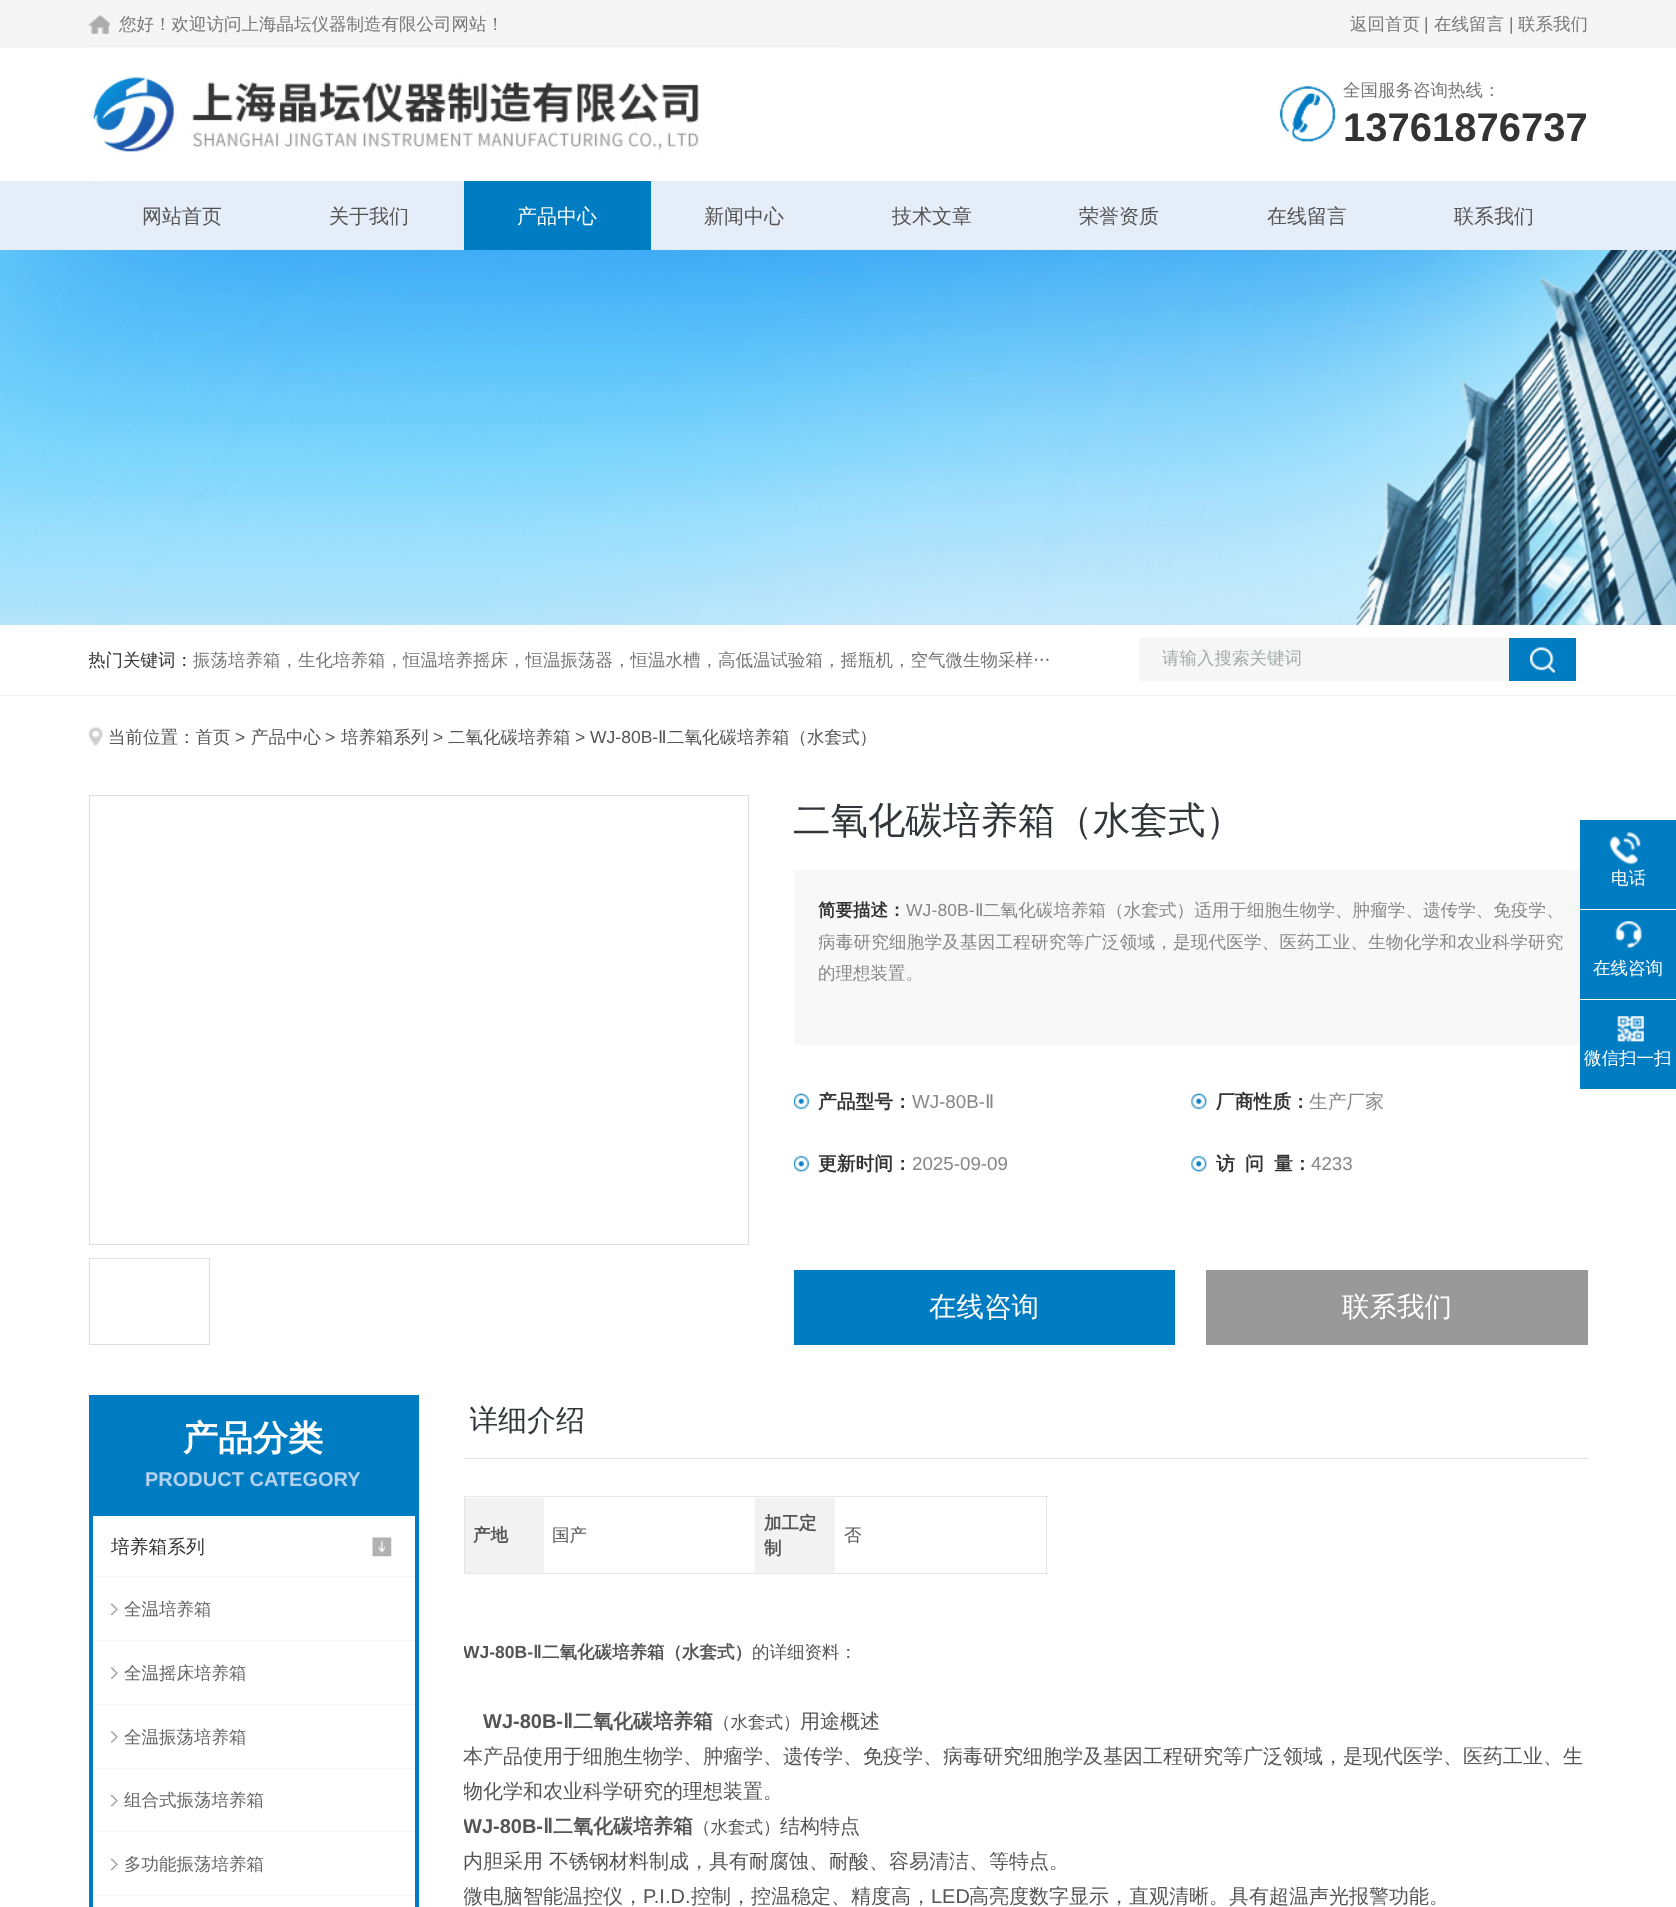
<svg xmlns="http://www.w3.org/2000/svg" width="1676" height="1907">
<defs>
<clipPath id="clip1"><rect x="89" y="625" width="975" height="70"/></clipPath>
<clipPath id="clip2"><rect x="819" y="895" width="745" height="125"/></clipPath>
<clipPath id="clip3"><rect x="470" y="1395" width="1119" height="63"/></clipPath>
<clipPath id="clip4"><rect x="464" y="1496" width="1125" height="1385"/></clipPath>
</defs>
<rect width="100%" height="100%" fill="#fff"/>
<rect width="1676" height="48" fill="#f5f5f5"/>
<image x="88" y="15" width="22" height="19" href="media/1.png"/>
<text x="119" y="30" style="font-family:WenQuanYi Zen Hei;font-size:17.5px;font-weight:500;fill:#777">您好！欢迎访问上海晶坛仪器制造有限公司网站！</text>
<text x="1350" y="30" style="font-family:WenQuanYi Zen Hei;font-size:17.5px;font-weight:500;fill:#777">返回首页</text>
<text x="1424" y="30" style="font-family:Liberation Sans;font-size:17.5px;fill:#777">|</text>
<text x="1434" y="30" style="font-family:WenQuanYi Zen Hei;font-size:17.5px;font-weight:500;fill:#777">在线留言</text>
<text x="1509" y="30" style="font-family:Liberation Sans;font-size:17.5px;fill:#777">|</text>
<text x="1518" y="30" style="font-family:WenQuanYi Zen Hei;font-size:17.5px;font-weight:500;fill:#777">联系我们</text>
<image x="89" y="47" width="753" height="133" href="media/2.png"/>
<image x="1279" y="86" width="57" height="56" href="media/3.png"/>
<text x="1343" y="96" style="font-family:WenQuanYi Zen Hei;font-size:17.5px;font-weight:500;fill:#777">全国服务咨询热线：</text>
<text x="1343" y="141" style="font-family:Liberation Sans;font-size:40px;font-weight:bold;fill:#333">13761876737</text>
<rect y="181" width="1676" height="69" fill="#e5edf8"/>
<text x="142" y="223" style="font-family:WenQuanYi Zen Hei;font-size:20px;font-weight:500;fill:#555">网站首页</text>
<text x="329" y="223" style="font-family:WenQuanYi Zen Hei;font-size:20px;font-weight:500;fill:#555">关于我们</text>
<rect x="464" y="181" width="187" height="69" fill="#007cc2"/>
<text x="517" y="223" style="font-family:WenQuanYi Zen Hei;font-size:20px;font-weight:500;fill:#fff">产品中心</text>
<text x="704" y="223" style="font-family:WenQuanYi Zen Hei;font-size:20px;font-weight:500;fill:#555">新闻中心</text>
<text x="892" y="223" style="font-family:WenQuanYi Zen Hei;font-size:20px;font-weight:500;fill:#555">技术文章</text>
<text x="1079" y="223" style="font-family:WenQuanYi Zen Hei;font-size:20px;font-weight:500;fill:#555">荣誉资质</text>
<text x="1267" y="223" style="font-family:WenQuanYi Zen Hei;font-size:20px;font-weight:500;fill:#555">在线留言</text>
<text x="1454" y="223" style="font-family:WenQuanYi Zen Hei;font-size:20px;font-weight:500;fill:#555">联系我们</text>
<image x="0" y="250" width="1676" height="375" href="media/4.png"/>
<rect y="695" width="1676" height="1" fill="#f1f1f1"/>
<g clip-path="url(#clip1)">
<text x="88" y="666" style="font-family:WenQuanYi Zen Hei;font-size:17.5px;font-weight:500;fill:#333">热门关键词：</text>
</g>
<text x="193" y="666" style="font-family:WenQuanYi Zen Hei;font-size:17.5px;font-weight:500;fill:#777">振荡培养箱，生化培养箱，恒温培养摇床，恒温振荡器，恒温水槽，高低温试验箱，摇瓶机，空气微生物采样…</text>
<rect x="1139" y="638" width="370" height="43" fill="#f6f6f6"/>
<text x="1162" y="664" style="font-family:WenQuanYi Zen Hei;font-size:17.5px;font-weight:500;fill:#a4ada9">请输入搜索关键词</text>
<rect x="1509" y="638" width="67" height="43" fill="#007cc2"/>
<image x="1530" y="647" width="25" height="26" href="media/5.png"/>
<image x="89" y="727" width="14" height="20" href="media/6.png"/>
<text x="108" y="743" style="font-family:WenQuanYi Zen Hei;font-size:17.5px;font-weight:500;fill:#555">当前位置：首页</text>
<text x="235" y="743" style="font-family:Liberation Sans;font-size:17.5px;fill:#555">&gt;</text>
<text x="251" y="743" style="font-family:WenQuanYi Zen Hei;font-size:17.5px;font-weight:500;fill:#555">产品中心</text>
<text x="325" y="743" style="font-family:Liberation Sans;font-size:17.5px;fill:#555">&gt;</text>
<text x="341" y="743" style="font-family:WenQuanYi Zen Hei;font-size:17.5px;font-weight:500;fill:#555">培养箱系列</text>
<text x="433" y="743" style="font-family:Liberation Sans;font-size:17.5px;fill:#555">&gt;</text>
<text x="448" y="743" style="font-family:WenQuanYi Zen Hei;font-size:17.5px;font-weight:500;fill:#555">二氧化碳培养箱</text>
<text x="575" y="743" style="font-family:Liberation Sans;font-size:17.5px;fill:#555">&gt; WJ-80B-</text>
<text x="658" y="743" style="font-family:DejaVu Sans;font-size:17.5px;fill:#555">Ⅱ</text>
<text x="667" y="743" style="font-family:WenQuanYi Zen Hei;font-size:17.5px;font-weight:500;fill:#555">二氧化碳培养箱（水套式）</text>
<rect x="89.5" y="795.5" width="659" height="449" fill="none" stroke="#dfdfdf"/>
<rect x="89.5" y="1258.5" width="120" height="86" fill="none" stroke="#dfdfdf"/>
<text x="793" y="833" style="font-family:WenQuanYi Zen Hei;font-size:37.5px;font-weight:500;fill:#32353a">二氧化碳培养箱（水套式）</text>
<rect x="794" y="870" width="795" height="175" fill="#f8f8f8"/>
<text x="818" y="916" style="font-family:WenQuanYi Zen Hei;font-size:17.5px;font-weight:bold;fill:#333">简要描述：</text>
<text x="906" y="916" style="font-family:Liberation Sans;font-size:17.5px;letter-spacing:0.1px;fill:#888">WJ-80B-</text>
<text x="975" y="916" style="font-family:DejaVu Sans;font-size:17.5px;letter-spacing:0.1px;fill:#888">Ⅱ</text>
<text x="983" y="916" style="font-family:WenQuanYi Zen Hei;font-size:17.5px;font-weight:500;letter-spacing:0.1px;fill:#888">二氧化碳培养箱（水套式）适用于细胞生物学、肿瘤学、遗传学、免疫学、</text>
<g clip-path="url(#clip2)">
<text x="818" y="948" style="font-family:WenQuanYi Zen Hei;font-size:17.5px;font-weight:500;letter-spacing:0.25px;fill:#888">病毒研究细胞学及基因工程研究等广泛领域，是现代医学、医药工业、生物化学和农业科学研究</text>
</g>
<text x="818" y="979" style="font-family:WenQuanYi Zen Hei;font-size:17.5px;font-weight:500;fill:#888">的理想装置。</text>
<image x="793" y="1093" width="16" height="16" href="media/7.png"/>
<text x="818" y="1108" style="font-family:WenQuanYi Zen Hei;font-size:18.75px;font-weight:bold;fill:#333">产品型号：</text>
<text x="912" y="1108" style="font-family:Liberation Sans;font-size:18.75px;fill:#888">WJ-80B-</text>
<text x="985" y="1108" style="font-family:DejaVu Sans;font-size:18.75px;fill:#888">Ⅱ</text>
<image x="1191" y="1093" width="16" height="16" href="media/8.png"/>
<text x="1216" y="1108" style="font-family:WenQuanYi Zen Hei;font-size:18.75px;font-weight:bold;fill:#333">厂商性质：</text>
<text x="1309" y="1108" style="font-family:WenQuanYi Zen Hei;font-size:18.75px;font-weight:500;fill:#888">生产厂家</text>
<image x="793" y="1156" width="16" height="16" href="media/9.png"/>
<text x="818" y="1170" style="font-family:WenQuanYi Zen Hei;font-size:18.75px;font-weight:bold;fill:#333">更新时间：</text>
<text x="912" y="1170" style="font-family:Liberation Sans;font-size:18.75px;fill:#888">2025-09-09</text>
<image x="1191" y="1156" width="16" height="16" href="media/10.png"/>
<text x="1216" y="1170" style="font-family:WenQuanYi Zen Hei;font-size:18.75px;font-weight:bold;fill:#333">访</text>
<text x="1245" y="1170" style="font-family:WenQuanYi Zen Hei;font-size:18.75px;font-weight:bold;fill:#333">问</text>
<text x="1274" y="1170" style="font-family:WenQuanYi Zen Hei;font-size:18.75px;font-weight:bold;fill:#333">量：</text>
<text x="1311" y="1170" style="font-family:Liberation Sans;font-size:18.75px;fill:#888">4233</text>
<rect x="794" y="1270" width="381" height="75" fill="#007cc2"/>
<text x="929" y="1316" style="font-family:WenQuanYi Zen Hei;font-size:27.5px;font-weight:500;fill:#fff">在线咨询</text>
<rect x="1206" y="1270" width="382" height="75" fill="#999"/>
<text x="1342" y="1316" style="font-family:WenQuanYi Zen Hei;font-size:27.5px;font-weight:500;fill:#fff">联系我们</text>
<rect x="89" y="1395" width="330" height="118" fill="#007cc2"/>
<text x="183" y="1450" style="font-family:WenQuanYi Zen Hei;font-size:35px;font-weight:bold;fill:#fff">产品分类</text>
<text x="145" y="1486" style="font-family:Liberation Sans;font-size:20px;font-weight:bold;fill:#b3d2ef">PRODUCT CATEGORY</text>
<rect x="91" y="1515" width="326" height="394" fill="none" stroke="#007cc2" stroke-width="4"/>
<rect x="93" y="1516" width="322" height="1" fill="#fff"/>
<rect x="93" y="1576" width="322" height="1" fill="#f4f7fc"/>
<text x="111" y="1553" style="font-family:WenQuanYi Zen Hei;font-size:18.75px;font-weight:500;fill:#333">培养箱系列</text>
<image x="372" y="1537" width="20" height="20" href="media/11.png"/>
<image x="111" y="1603" width="7" height="12" href="media/12.png"/>
<rect x="93" y="1640" width="322" height="1" fill="#f4f7fc"/>
<text x="124" y="1615" style="font-family:WenQuanYi Zen Hei;font-size:17.5px;font-weight:500;fill:#666">全温培养箱</text>
<image x="111" y="1667" width="7" height="12" href="media/13.png"/>
<rect x="93" y="1704" width="322" height="1" fill="#f4f7fc"/>
<text x="124" y="1679" style="font-family:WenQuanYi Zen Hei;font-size:17.5px;font-weight:500;fill:#666">全温摇床培养箱</text>
<image x="111" y="1731" width="7" height="12" href="media/14.png"/>
<rect x="93" y="1768" width="322" height="1" fill="#f4f7fc"/>
<text x="124" y="1743" style="font-family:WenQuanYi Zen Hei;font-size:17.5px;font-weight:500;fill:#666">全温振荡培养箱</text>
<image x="111" y="1795" width="7" height="12" href="media/15.png"/>
<rect x="93" y="1831" width="322" height="1" fill="#f4f7fc"/>
<text x="124" y="1806" style="font-family:WenQuanYi Zen Hei;font-size:17.5px;font-weight:500;fill:#666">组合式振荡培养箱</text>
<image x="111" y="1858" width="7" height="12" href="media/12.png"/>
<rect x="93" y="1895" width="322" height="1" fill="#f4f7fc"/>
<text x="124" y="1870" style="font-family:WenQuanYi Zen Hei;font-size:17.5px;font-weight:500;fill:#666">多功能振荡培养箱</text>
<rect x="464" y="1458" width="1125" height="1" fill="#dfdfdf"/>
<g clip-path="url(#clip3)">
<text x="469" y="1430" style="font-family:WenQuanYi Zen Hei;font-size:29px;font-weight:500;fill:#32353a">详细介绍</text>
</g>
<rect x="464" y="1496" width="584" height="1" fill="#e6e5e5"/>
<rect x="1046" y="1496" width="1" height="78" fill="#e6e5e5"/>
<rect x="464" y="1496" width="1" height="78" fill="#e6e5e5"/>
<rect x="465" y="1498" width="79" height="75" fill="#f2f2f2"/>
<text x="473" y="1541" style="font-family:WenQuanYi Zen Hei;font-size:17.5px;font-weight:bold;fill:#555">产地</text>
<text x="552" y="1541" style="font-family:WenQuanYi Zen Hei;font-size:17.5px;font-weight:500;fill:#555">国产</text>
<rect x="755" y="1498" width="80" height="75" fill="#f2f2f2"/>
<text x="764" y="1529" style="font-family:WenQuanYi Zen Hei;font-size:17.5px;font-weight:bold;fill:#555">加工定</text>
<text x="764" y="1554" style="font-family:WenQuanYi Zen Hei;font-size:17.5px;font-weight:bold;fill:#555">制</text>
<rect x="464" y="1573" width="584" height="1" fill="#e6e5e5"/>
<text x="844" y="1541" style="font-family:WenQuanYi Zen Hei;font-size:17.5px;font-weight:500;fill:#555">否</text>
<g clip-path="url(#clip4)">
<text x="463" y="1658" style="font-family:Liberation Sans;font-size:17.5px;font-weight:bold;fill:#555">WJ-80B-</text>
</g>
<text x="533" y="1658" style="font-family:DejaVu Sans;font-size:17.5px;font-weight:bold;fill:#555">Ⅱ</text>
<text x="542" y="1658" style="font-family:WenQuanYi Zen Hei;font-size:17.5px;font-weight:bold;fill:#555">二氧化碳培养箱（水套式）</text>
<text x="752" y="1658" style="font-family:WenQuanYi Zen Hei;font-size:17.5px;font-weight:500;fill:#555">的详细资料：</text>
<text x="483" y="1728" style="font-family:Liberation Sans;font-size:20px;font-weight:bold;fill:#555">WJ-80B-</text>
<text x="563" y="1728" style="font-family:DejaVu Sans;font-size:20px;font-weight:bold;fill:#555">Ⅱ</text>
<text x="573" y="1728" style="font-family:WenQuanYi Zen Hei;font-size:20px;font-weight:bold;fill:#555">二氧化碳培养箱</text>
<text x="713" y="1728" style="font-family:WenQuanYi Zen Hei;font-size:17.5px;font-weight:500;fill:#555">（水套式）</text>
<text x="800" y="1728" style="font-family:WenQuanYi Zen Hei;font-size:20px;font-weight:500;fill:#555">用途概述</text>
<text x="463" y="1763" style="font-family:WenQuanYi Zen Hei;font-size:20px;font-weight:500;fill:#555">本产品使用于细胞生物学、肿瘤学、遗传学、免疫学、病毒研究细胞学及基因工程研究等广泛领域，是现代医学、医药工业、生</text>
<g clip-path="url(#clip4)">
<text x="463" y="1798" style="font-family:WenQuanYi Zen Hei;font-size:20px;font-weight:500;fill:#555">物化学和农业科学研究的理想装置。</text>
<text x="463" y="1833" style="font-family:Liberation Sans;font-size:20px;font-weight:bold;fill:#555">WJ-80B-</text>
</g>
<text x="543" y="1833" style="font-family:DejaVu Sans;font-size:20px;font-weight:bold;fill:#555">Ⅱ</text>
<text x="553" y="1833" style="font-family:WenQuanYi Zen Hei;font-size:20px;font-weight:bold;fill:#555">二氧化碳培养箱</text>
<text x="693" y="1833" style="font-family:WenQuanYi Zen Hei;font-size:17.5px;font-weight:500;fill:#555">（水套式）</text>
<text x="780" y="1833" style="font-family:WenQuanYi Zen Hei;font-size:20px;font-weight:500;fill:#555">结构特点</text>
<text x="463" y="1868" style="font-family:WenQuanYi Zen Hei;font-size:20px;font-weight:500;fill:#555">内胆采用 不锈钢材料制成，具有耐腐蚀、耐酸、容易清洁、等特点。</text>
<g clip-path="url(#clip4)">
<text x="463" y="1903" style="font-family:WenQuanYi Zen Hei;font-size:20px;font-weight:500;fill:#555">微电脑智能温控仪，</text>
</g>
<text x="643" y="1903" style="font-family:Liberation Sans;font-size:20px;fill:#555">P.I.D.</text>
<text x="691" y="1903" style="font-family:WenQuanYi Zen Hei;font-size:20px;font-weight:500;fill:#555">控制，控温稳定、精度高，</text>
<text x="931" y="1903" style="font-family:Liberation Sans;font-size:20px;fill:#555">LED</text>
<text x="969" y="1903" style="font-family:WenQuanYi Zen Hei;font-size:20px;font-weight:500;fill:#555">高亮度数字显示，直观清晰。具有超温声光报警功能。</text>
<rect x="1580" y="820" width="96" height="89" fill="#007cc2"/>
<image x="1609" y="832" width="32" height="33" href="media/16.png"/>
<text x="1611" y="884" style="font-family:WenQuanYi Zen Hei;font-size:17.5px;font-weight:500;fill:#fff">电话</text>
<rect x="1580" y="910" width="96" height="89" fill="#007cc2"/>
<image x="1615" y="921" width="27" height="28" href="media/17.png"/>
<text x="1593" y="974" style="font-family:WenQuanYi Zen Hei;font-size:17.5px;font-weight:500;fill:#fff">在线咨询</text>
<rect x="1580" y="1000" width="96" height="89" fill="#007cc2"/>
<image x="1617" y="1016" width="27" height="27" href="media/18.png"/>
<text x="1584" y="1064" style="font-family:WenQuanYi Zen Hei;font-size:17.5px;font-weight:500;fill:#fff">微信扫一扫</text>
</svg>
